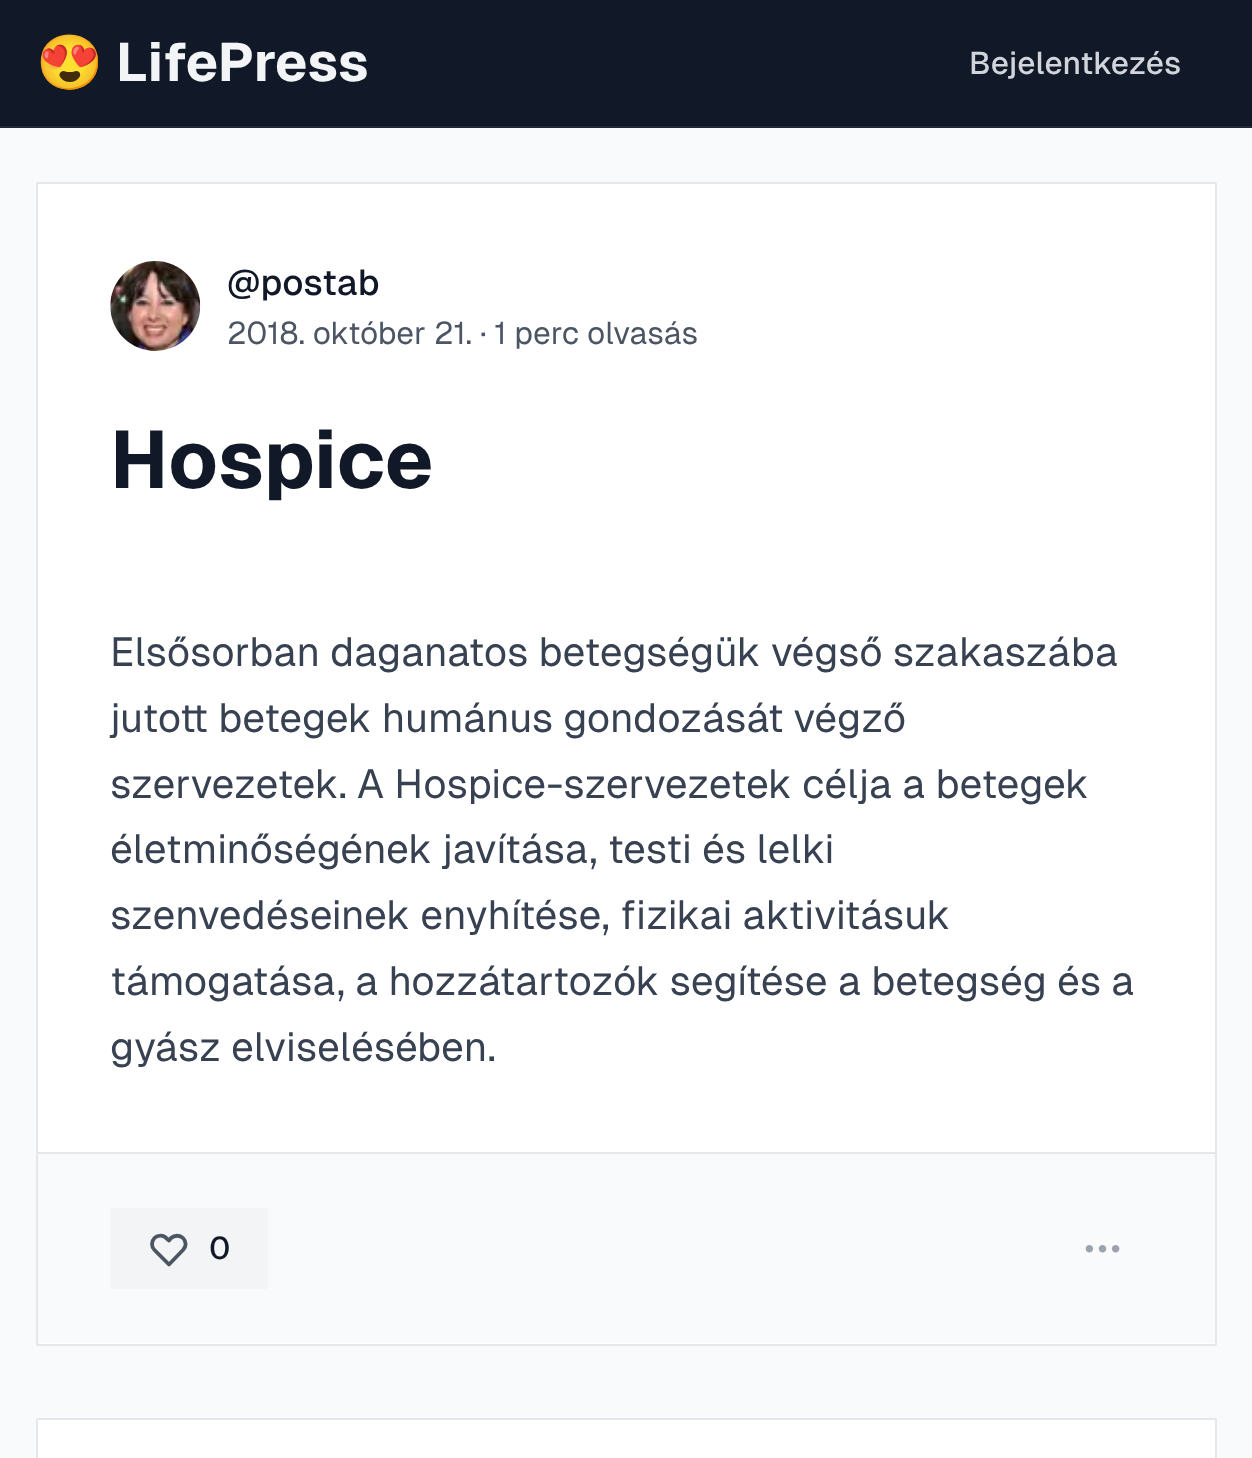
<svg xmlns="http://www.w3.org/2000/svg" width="1252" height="1458">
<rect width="100%" height="100%" fill="#f9fafb"/>
<rect width="1252" height="126" fill="#111827"/>
<rect y="126" width="1252" height="2" fill="#1f2937"/>
<text x="36" y="81" style="font-family:Noto Color Emoji;font-size:54px;font-weight:bold;fill:#f3f4f6">😍</text>
<text x="116" y="81" style="font-family:Geist;font-size:54px;font-weight:bold;fill:#f3f4f6">LifePress</text>
<text x="969" y="74" style="font-family:Geist;font-size:31.5px;font-weight:500;fill:#d1d5db">Bejelentkezés</text>
<rect x="37" y="183" width="1179" height="1162" rx="1" fill="#fff" stroke="#e5e7eb" stroke-width="2"/>
<image x="110" y="261" width="91" height="90" href="media/1.png"/>
<text x="227" y="295" style="font-family:Geist;font-size:36px;font-weight:500;fill:#111827">@postab</text>
<text x="227" y="344" style="font-family:Geist;font-size:31.5px;fill:#4b5563">2018. október 21. · 1 perc olvasás</text>
<text x="110" y="488" style="font-family:Geist;font-size:81px;font-weight:bold;fill:#111827">Hospice</text>
<text x="110" y="666" style="font-family:Geist;font-size:40.5px;fill:#374151">Elsősorban daganatos betegségük végső szakaszába</text>
<text x="110" y="732" style="font-family:Geist;font-size:40.5px;fill:#374151">jutott betegek humánus gondozását végző</text>
<text x="110" y="798" style="font-family:Geist;font-size:40.5px;fill:#374151">szervezetek. A Hospice-szervezetek célja a betegek</text>
<text x="110" y="863" style="font-family:Geist;font-size:40.5px;fill:#374151">életminőségének javítása, testi és lelki</text>
<text x="110" y="929" style="font-family:Geist;font-size:40.5px;fill:#374151">szenvedéseinek enyhítése, fizikai aktivitásuk</text>
<text x="110" y="995" style="font-family:Geist;font-size:40.5px;fill:#374151">támogatása, a hozzátartozók segítése a betegség és a</text>
<text x="110" y="1061" style="font-family:Geist;font-size:40.5px;fill:#374151">gyász elviselésében.</text>
<rect x="38" y="1154" width="1177" height="189" fill="#f9fafb"/>
<rect x="38" y="1152" width="1177" height="2" fill="#e5e7eb"/>
<rect x="110" y="1208" width="158" height="81" rx="2" fill="#f3f4f6"/>
<path d="M154.5 1238c-1.5 1.5-2.5 4-2.5 6c0 2.5 1 4.5 2.5 6l14.5 14.5l14-14.5c3.5-3.5 3.5-8.5 0-12c-3-3-8.5-3-12 0l-2 2.5l-4-3.5c-3.5-2-8-1.5-10.5 1z" fill="none" stroke="#4b5563" stroke-width="3.8" stroke-linecap="round" stroke-linejoin="round"/>
<text x="209" y="1259" style="font-family:Geist;font-size:31.5px;font-weight:500;fill:#111827">0</text>
<image x="1085" y="1245" width="35" height="8" href="media/2.png"/>
<rect x="37" y="1419" width="1179" height="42" rx="1" fill="#fff" stroke="#e5e7eb" stroke-width="2"/>
</svg>
